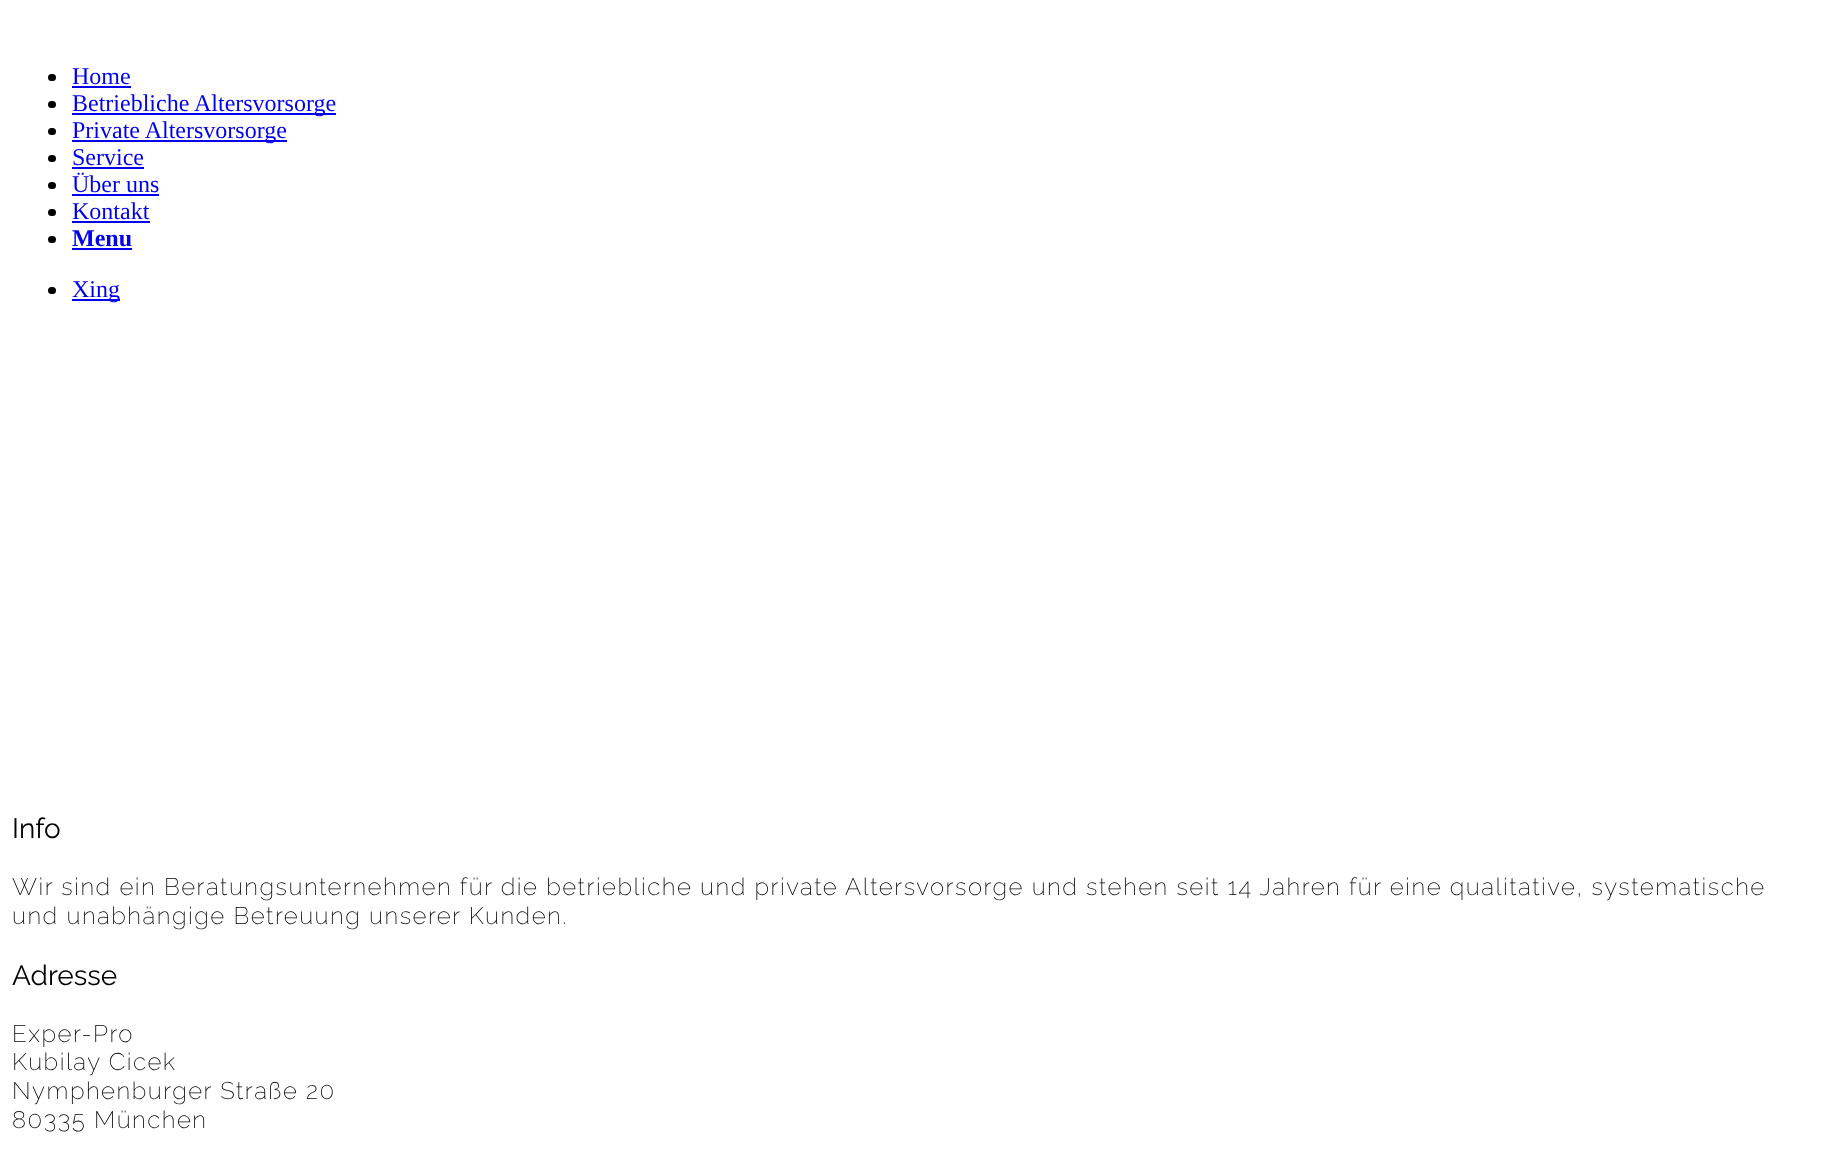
<svg xmlns="http://www.w3.org/2000/svg" width="1821" height="1149">
<rect width="100%" height="100%" fill="#fff"/>
<rect x="48" y="74" width="8" height="7" rx="3.5" fill="#000"/>
<text x="72" y="84" style="font-family:Liberation Serif;font-size:24px;fill:#00e">Home</text>
<rect x="72" y="86" width="59" height="2" fill="#00e"/>
<rect x="48" y="101" width="8" height="7" rx="3.5" fill="#000"/>
<rect x="72" y="113" width="264" height="2" fill="#00e"/>
<text x="72" y="111" style="font-family:Liberation Serif;font-size:24px;fill:#00e">Betriebliche Altersvorsorge</text>
<rect x="48" y="128" width="8" height="7" rx="3.5" fill="#000"/>
<rect x="72" y="140" width="215" height="2" fill="#00e"/>
<text x="72" y="138" style="font-family:Liberation Serif;font-size:24px;fill:#00e">Private Altersvorsorge</text>
<rect x="48" y="155" width="8" height="7" rx="3.5" fill="#000"/>
<text x="72" y="165" style="font-family:Liberation Serif;font-size:24px;fill:#00e">Service</text>
<rect x="72" y="167" width="72" height="2" fill="#00e"/>
<rect x="48" y="182" width="8" height="7" rx="3.5" fill="#000"/>
<text x="72" y="192" style="font-family:Liberation Serif;font-size:24px;fill:#00e">Über uns</text>
<rect x="72" y="194" width="87" height="2" fill="#00e"/>
<rect x="48" y="209" width="8" height="7" rx="3.5" fill="#000"/>
<text x="72" y="219" style="font-family:Liberation Serif;font-size:24px;fill:#00e">Kontakt</text>
<rect x="72" y="221" width="78" height="2" fill="#00e"/>
<rect x="48" y="236" width="8" height="7" rx="3.5" fill="#000"/>
<text x="72" y="246" style="font-family:Liberation Serif;font-size:24px;font-weight:bold;fill:#00e">Menu</text>
<rect x="72" y="248" width="60" height="2" fill="#00e"/>
<rect x="48" y="287" width="8" height="7" rx="3.5" fill="#000"/>
<rect x="72" y="299" width="48" height="2" fill="#00e"/>
<text x="72" y="297" style="font-family:Liberation Serif;font-size:24px;fill:#00e">Xing</text>
<text x="12" y="838" style="font-family:Raleway;font-size:28px;fill:#000">Info</text>
<text x="12" y="895" style="font-family:Raleway;font-size:24px;font-weight:200;letter-spacing:1.5px;fill:#000">Wir sind ein Beratungsunternehmen für die betriebliche und private Altersvorsorge und stehen seit 14 Jahren für eine qualitative, systematische</text>
<text x="12" y="924" style="font-family:Raleway;font-size:24px;font-weight:200;letter-spacing:1.5px;fill:#000">und unabhängige Betreuung unserer Kunden.</text>
<text x="12" y="985" style="font-family:Raleway;font-size:28px;fill:#000">Adresse</text>
<text x="12" y="1042" style="font-family:Raleway;font-size:24px;font-weight:200;letter-spacing:1.5px;fill:#000">Exper-Pro</text>
<text x="12" y="1070" style="font-family:Raleway;font-size:24px;font-weight:200;letter-spacing:1.5px;fill:#000">Kubilay Cicek</text>
<text x="12" y="1099" style="font-family:Raleway;font-size:24px;font-weight:200;letter-spacing:1.5px;fill:#000">Nymphenburger Straße 20</text>
<text x="12" y="1128" style="font-family:Raleway;font-size:24px;font-weight:200;letter-spacing:1.5px;fill:#000">80335 München</text>
</svg>
